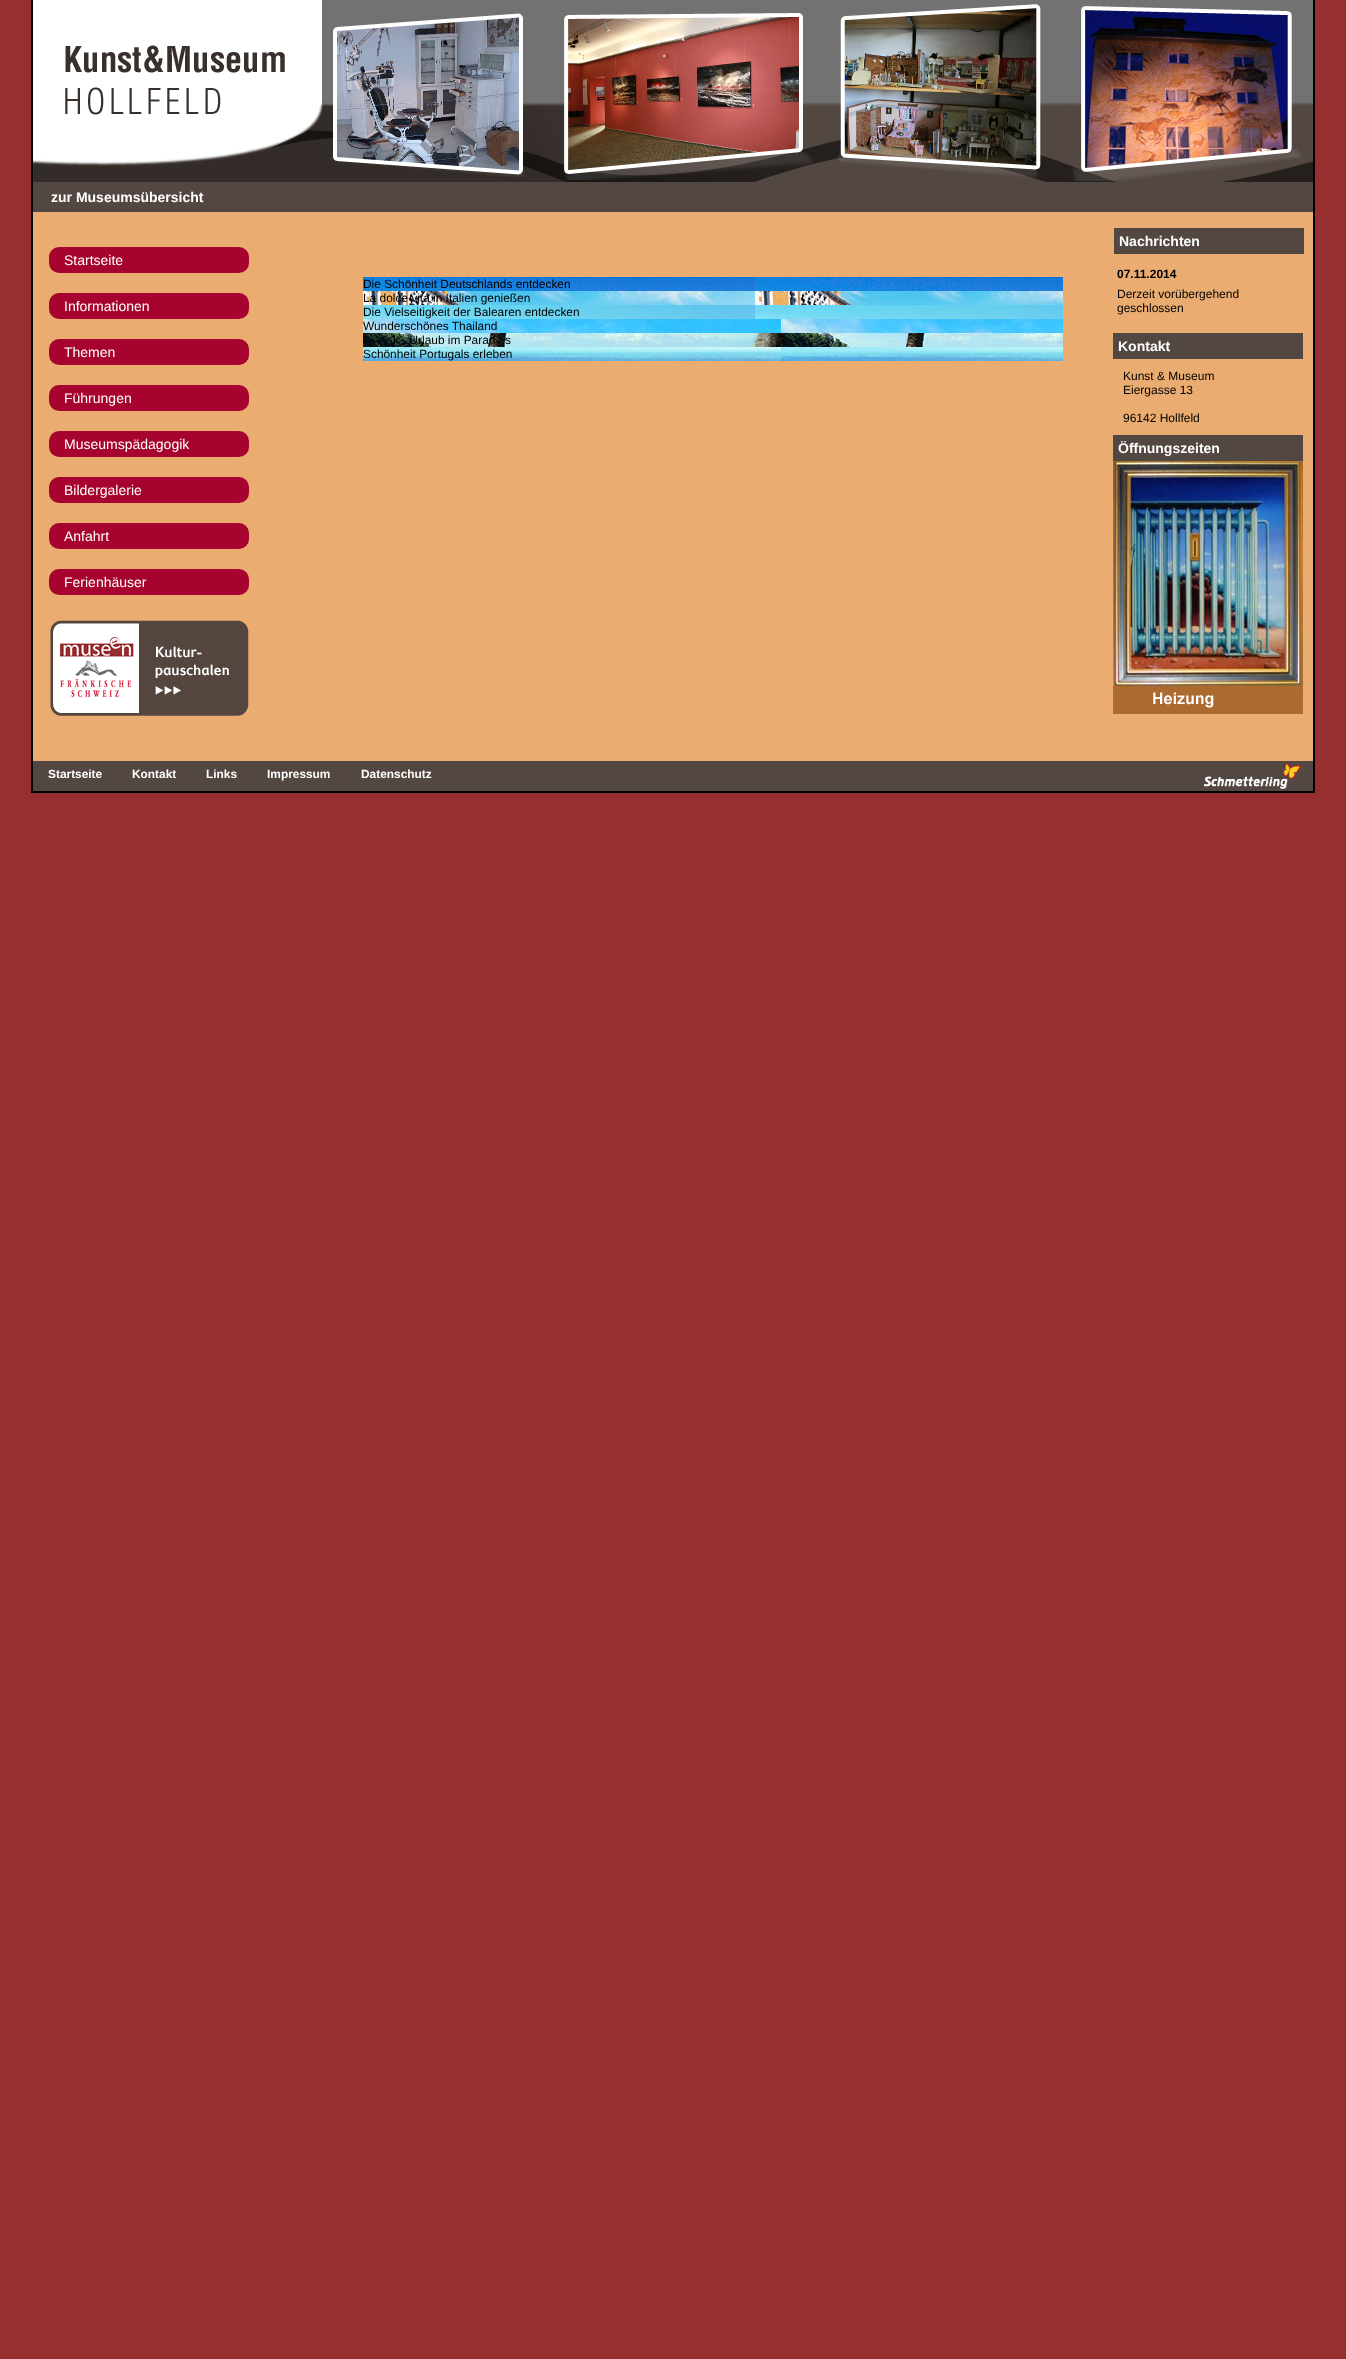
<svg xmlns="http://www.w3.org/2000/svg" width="1346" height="2359">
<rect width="100%" height="100%" fill="#972f30"/>
<rect x="33" y="212" width="1280" height="549" fill="#eaac71"/>
<rect x="1313" width="2" height="793" fill="#000"/>
<rect x="31" y="791" width="1284" height="2" fill="#000"/>
<rect x="31" width="2" height="793" fill="#000"/>
<image x="33" y="0" width="1280" height="182" href="media/1.png"/>
<rect x="33" y="182" width="1280" height="30" fill="#524741"/>
<text x="51" y="202" style="font-family:Liberation Sans;font-size:14px;font-weight:bold;fill:#fff">zur Museumsübersicht</text>
<rect x="49" y="247" width="200" height="26" rx="10" fill="#a6032e"/>
<text x="64" y="265" style="font-family:Liberation Sans;font-size:14px;fill:#fff">Startseite</text>
<rect x="49" y="293" width="200" height="26" rx="10" fill="#a6032e"/>
<text x="64" y="311" style="font-family:Liberation Sans;font-size:14px;fill:#fff">Informationen</text>
<rect x="49" y="339" width="200" height="26" rx="10" fill="#a6032e"/>
<text x="64" y="357" style="font-family:Liberation Sans;font-size:14px;fill:#fff">Themen</text>
<rect x="49" y="385" width="200" height="26" rx="10" fill="#a6032e"/>
<text x="64" y="403" style="font-family:Liberation Sans;font-size:14px;fill:#fff">Führungen</text>
<rect x="49" y="431" width="200" height="26" rx="10" fill="#a6032e"/>
<text x="64" y="449" style="font-family:Liberation Sans;font-size:14px;fill:#fff">Museumspädagogik</text>
<rect x="49" y="477" width="200" height="26" rx="10" fill="#a6032e"/>
<text x="64" y="495" style="font-family:Liberation Sans;font-size:14px;fill:#fff">Bildergalerie</text>
<rect x="49" y="523" width="200" height="26" rx="10" fill="#a6032e"/>
<text x="64" y="541" style="font-family:Liberation Sans;font-size:14px;fill:#fff">Anfahrt</text>
<rect x="49" y="569" width="200" height="26" rx="10" fill="#a6032e"/>
<text x="64" y="587" style="font-family:Liberation Sans;font-size:14px;fill:#fff">Ferienhäuser</text>
<image x="50" y="620" width="199" height="96" href="media/2.png"/>
<image x="363" y="277" width="700" height="14" href="media/3.png"/>
<text x="363" y="288" style="font-family:Liberation Sans;font-size:11.9px;fill:#000">Die Schönheit Deutschlands entdecken</text>
<image x="363" y="291" width="700" height="14" href="media/4.png"/>
<text x="363" y="302" style="font-family:Liberation Sans;font-size:11.9px;fill:#000">La dolce vita in Italien genießen</text>
<image x="363" y="305" width="700" height="14" href="media/5.png"/>
<text x="363" y="316" style="font-family:Liberation Sans;font-size:11.9px;fill:#000">Die Vielseitigkeit der Balearen entdecken</text>
<image x="363" y="319" width="700" height="14" href="media/6.png"/>
<text x="363" y="330" style="font-family:Liberation Sans;font-size:11.9px;fill:#000">Wunderschönes Thailand</text>
<image x="363" y="333" width="700" height="14" href="media/7.png"/>
<text x="393" y="344" style="font-family:Liberation Sans;font-size:11.9px;fill:#000">k - Urlaub im Parad</text>
<text x="505" y="344" style="font-family:Liberation Sans;font-size:11.9px;fill:#000">s</text>
<image x="363" y="347" width="700" height="14" href="media/8.png"/>
<text x="363" y="358" style="font-family:Liberation Sans;font-size:11.9px;fill:#000">Schönheit Portugals erleben</text>
<rect x="1114" y="228" width="190" height="26" fill="#524741"/>
<text x="1119" y="246" style="font-family:Liberation Sans;font-size:14px;font-weight:bold;fill:#fff">Nachrichten</text>
<text x="1117" y="278" style="font-family:Liberation Sans;font-size:12px;font-weight:bold;fill:#000">07.11.2014</text>
<text x="1117" y="298" style="font-family:Liberation Sans;font-size:12px;fill:#000">Derzeit vorübergehend</text>
<text x="1117" y="312" style="font-family:Liberation Sans;font-size:12px;fill:#000">geschlossen</text>
<rect x="1113" y="333" width="190" height="26" fill="#524741"/>
<text x="1118" y="351" style="font-family:Liberation Sans;font-size:14px;font-weight:bold;fill:#fff">Kontakt</text>
<text x="1123" y="380" style="font-family:Liberation Sans;font-size:12px;fill:#000">Kunst &amp; Museum</text>
<text x="1123" y="394" style="font-family:Liberation Sans;font-size:12px;fill:#000">Eiergasse 13</text>
<text x="1123" y="422" style="font-family:Liberation Sans;font-size:12px;fill:#000">96142 Hollfeld</text>
<rect x="1113" y="435" width="190" height="26" fill="#524741"/>
<text x="1118" y="453" style="font-family:Liberation Sans;font-size:14px;font-weight:bold;fill:#fff">Öffnungszeiten</text>
<image x="1113" y="461" width="190" height="253" href="media/9.png"/>
<rect x="33" y="761" width="1280" height="30" fill="#524741"/>
<text x="48" y="778" style="font-family:Liberation Sans;font-size:11.9px;font-weight:bold;fill:#fff">Startseite</text>
<text x="132" y="778" style="font-family:Liberation Sans;font-size:11.9px;font-weight:bold;fill:#fff">Kontakt</text>
<text x="206" y="778" style="font-family:Liberation Sans;font-size:11.9px;font-weight:bold;fill:#fff">Links</text>
<text x="267" y="778" style="font-family:Liberation Sans;font-size:11.9px;font-weight:bold;fill:#fff">Impressum</text>
<text x="361" y="778" style="font-family:Liberation Sans;font-size:11.9px;font-weight:bold;fill:#fff">Datenschutz</text>
<image x="1204" y="762" width="98" height="27" href="media/10.png"/>
</svg>
